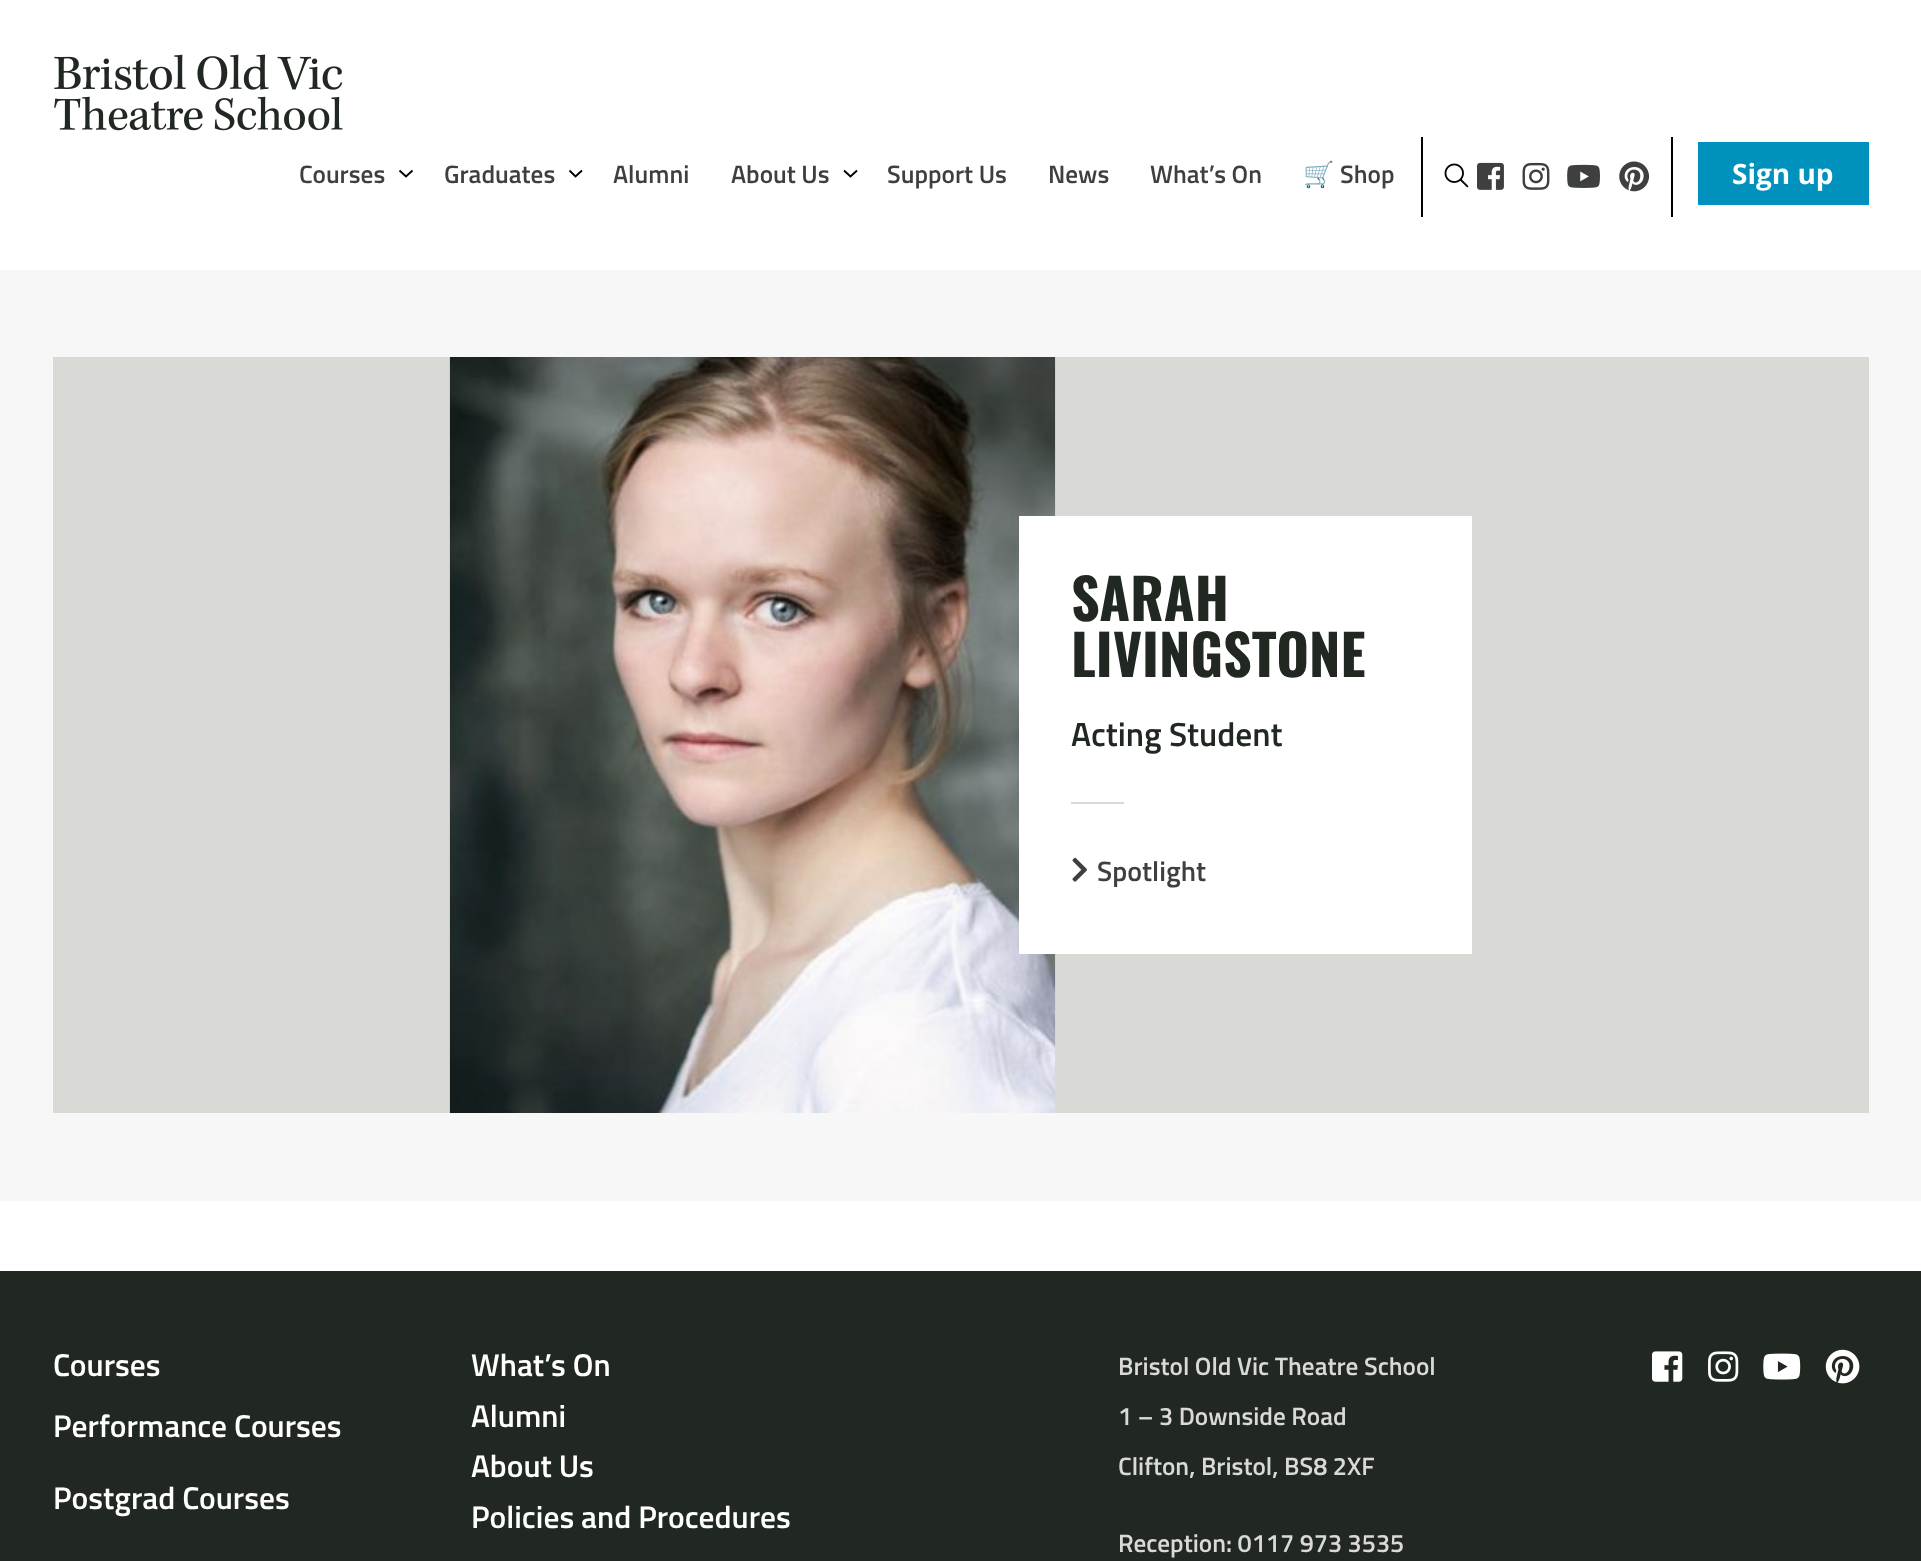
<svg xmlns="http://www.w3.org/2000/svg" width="1921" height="1561">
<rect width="100%" height="100%" fill="#fff"/>
<image x="54" y="54" width="289" height="77" href="media/1.png"/>
<text x="299" y="183" style="font-family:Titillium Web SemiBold;font-size:25.25px;font-weight:600;fill:#3e403f">Courses</text>
<path d="M399.5 170.5l6.5 6l6.5-6" fill="none" stroke="#000" stroke-width="1.9"/>
<text x="444" y="183" style="font-family:Titillium Web SemiBold;font-size:25.25px;font-weight:600;fill:#3e403f">Graduates</text>
<path d="M569.5 170.5l6 6l6.5-6" fill="none" stroke="#000" stroke-width="1.9"/>
<text x="613" y="183" style="font-family:Titillium Web SemiBold;font-size:25.25px;font-weight:600;fill:#3e403f">Alumni</text>
<text x="731" y="183" style="font-family:Titillium Web SemiBold;font-size:25.25px;font-weight:600;fill:#3e403f">About Us</text>
<path d="M844 170.5l6.5 6l6.5-6" fill="none" stroke="#000" stroke-width="1.9"/>
<text x="887" y="183" style="font-family:Titillium Web SemiBold;font-size:25.25px;font-weight:600;fill:#3e403f">Support Us</text>
<text x="1048" y="183" style="font-family:Titillium Web SemiBold;font-size:25.25px;font-weight:600;fill:#3e403f">News</text>
<text x="1150" y="183" style="font-family:Titillium Web SemiBold;font-size:25.25px;font-weight:600;fill:#3e403f">What’s On</text>
<text x="1303" y="183" style="font-family:Noto Color Emoji;font-size:25.25px;font-weight:bold;fill:#3e403f">🛒</text>
<text x="1340" y="183" style="font-family:Titillium Web SemiBold;font-size:25.25px;font-weight:600;fill:#3e403f">Shop</text>
<rect x="1671" y="137" width="2" height="80" fill="#000"/>
<rect x="1421" y="137" width="2" height="80" fill="#000"/>
<image x="1444" y="163" width="25" height="25" href="media/2.png"/>
<image x="1477" y="162" width="27" height="28" href="media/3.png"/>
<image x="1522" y="162" width="28" height="28" href="media/4.png"/>
<image x="1567" y="164" width="33" height="24" href="media/5.png"/>
<image x="1619" y="161" width="31" height="31" href="media/6.png"/>
<rect x="1698" y="142" width="171" height="63" fill="#0092bc"/>
<text x="1732" y="184" style="font-family:Open Sans;font-size:28px;font-weight:bold;fill:#fff">Sign up</text>
<rect y="270" width="1921" height="931" fill="#f7f7f7"/>
<rect x="53" y="357" width="1816" height="756" fill="#d9d9d6"/>
<image x="449" y="357" width="607" height="756" href="media/7.png"/>
<rect x="1019" y="516" width="453" height="438" fill="#fff"/>
<text x="1071" y="621" style="font-family:Oswald;font-size:56px;font-weight:bold;fill:#212721">SARAH</text>
<text x="1071" y="677" style="font-family:Oswald;font-size:56px;font-weight:bold;fill:#212721">LIVINGSTONE</text>
<text x="1071" y="746" style="font-family:Titillium Web SemiBold;font-size:33.5px;font-weight:600;fill:#212721">Acting Student</text>
<rect x="1071" y="802" width="53" height="2" fill="#d9d9d6"/>
<image x="1072" y="857" width="15" height="25" href="media/8.png"/>
<text x="1097" y="881" style="font-family:Titillium Web SemiBold;font-size:28px;font-weight:600;fill:#3e403f">Spotlight</text>
<rect y="1271" width="1921" height="290" fill="#212721"/>
<text x="53" y="1376" style="font-family:Titillium Web SemiBold;font-size:31.5px;font-weight:600;fill:#fff">Courses</text>
<text x="53" y="1437" style="font-family:Titillium Web SemiBold;font-size:31.5px;font-weight:600;fill:#fff">Performance Courses</text>
<text x="53" y="1509" style="font-family:Titillium Web SemiBold;font-size:31.5px;font-weight:600;fill:#fff">Postgrad Courses</text>
<text x="471" y="1376" style="font-family:Titillium Web SemiBold;font-size:31.5px;font-weight:600;fill:#fff">What’s On</text>
<text x="471" y="1427" style="font-family:Titillium Web SemiBold;font-size:31.5px;font-weight:600;fill:#fff">Alumni</text>
<text x="471" y="1477" style="font-family:Titillium Web SemiBold;font-size:31.5px;font-weight:600;fill:#fff">About Us</text>
<text x="471" y="1528" style="font-family:Titillium Web SemiBold;font-size:31.5px;font-weight:600;fill:#fff">Policies and Procedures</text>
<text x="1118" y="1375" style="font-family:Titillium Web SemiBold;font-size:25.25px;font-weight:600;fill:#d9d9d6">Bristol Old Vic Theatre School</text>
<text x="1118" y="1425" style="font-family:Titillium Web SemiBold;font-size:25.25px;font-weight:600;fill:#d9d9d6">1 – 3 Downside Road</text>
<text x="1118" y="1475" style="font-family:Titillium Web SemiBold;font-size:25.25px;font-weight:600;fill:#d9d9d6">Clifton, Bristol, BS8 2XF</text>
<text x="1118" y="1552" style="font-family:Titillium Web SemiBold;font-size:25.25px;font-weight:600;fill:#d9d9d6">Reception: 0117 973 3535</text>
<image x="1652" y="1351" width="31" height="31" href="media/9.png"/>
<image x="1708" y="1351" width="31" height="31" href="media/10.png"/>
<image x="1763" y="1353" width="38" height="27" href="media/11.png"/>
<image x="1825" y="1349" width="35" height="35" href="media/12.png"/>
</svg>
